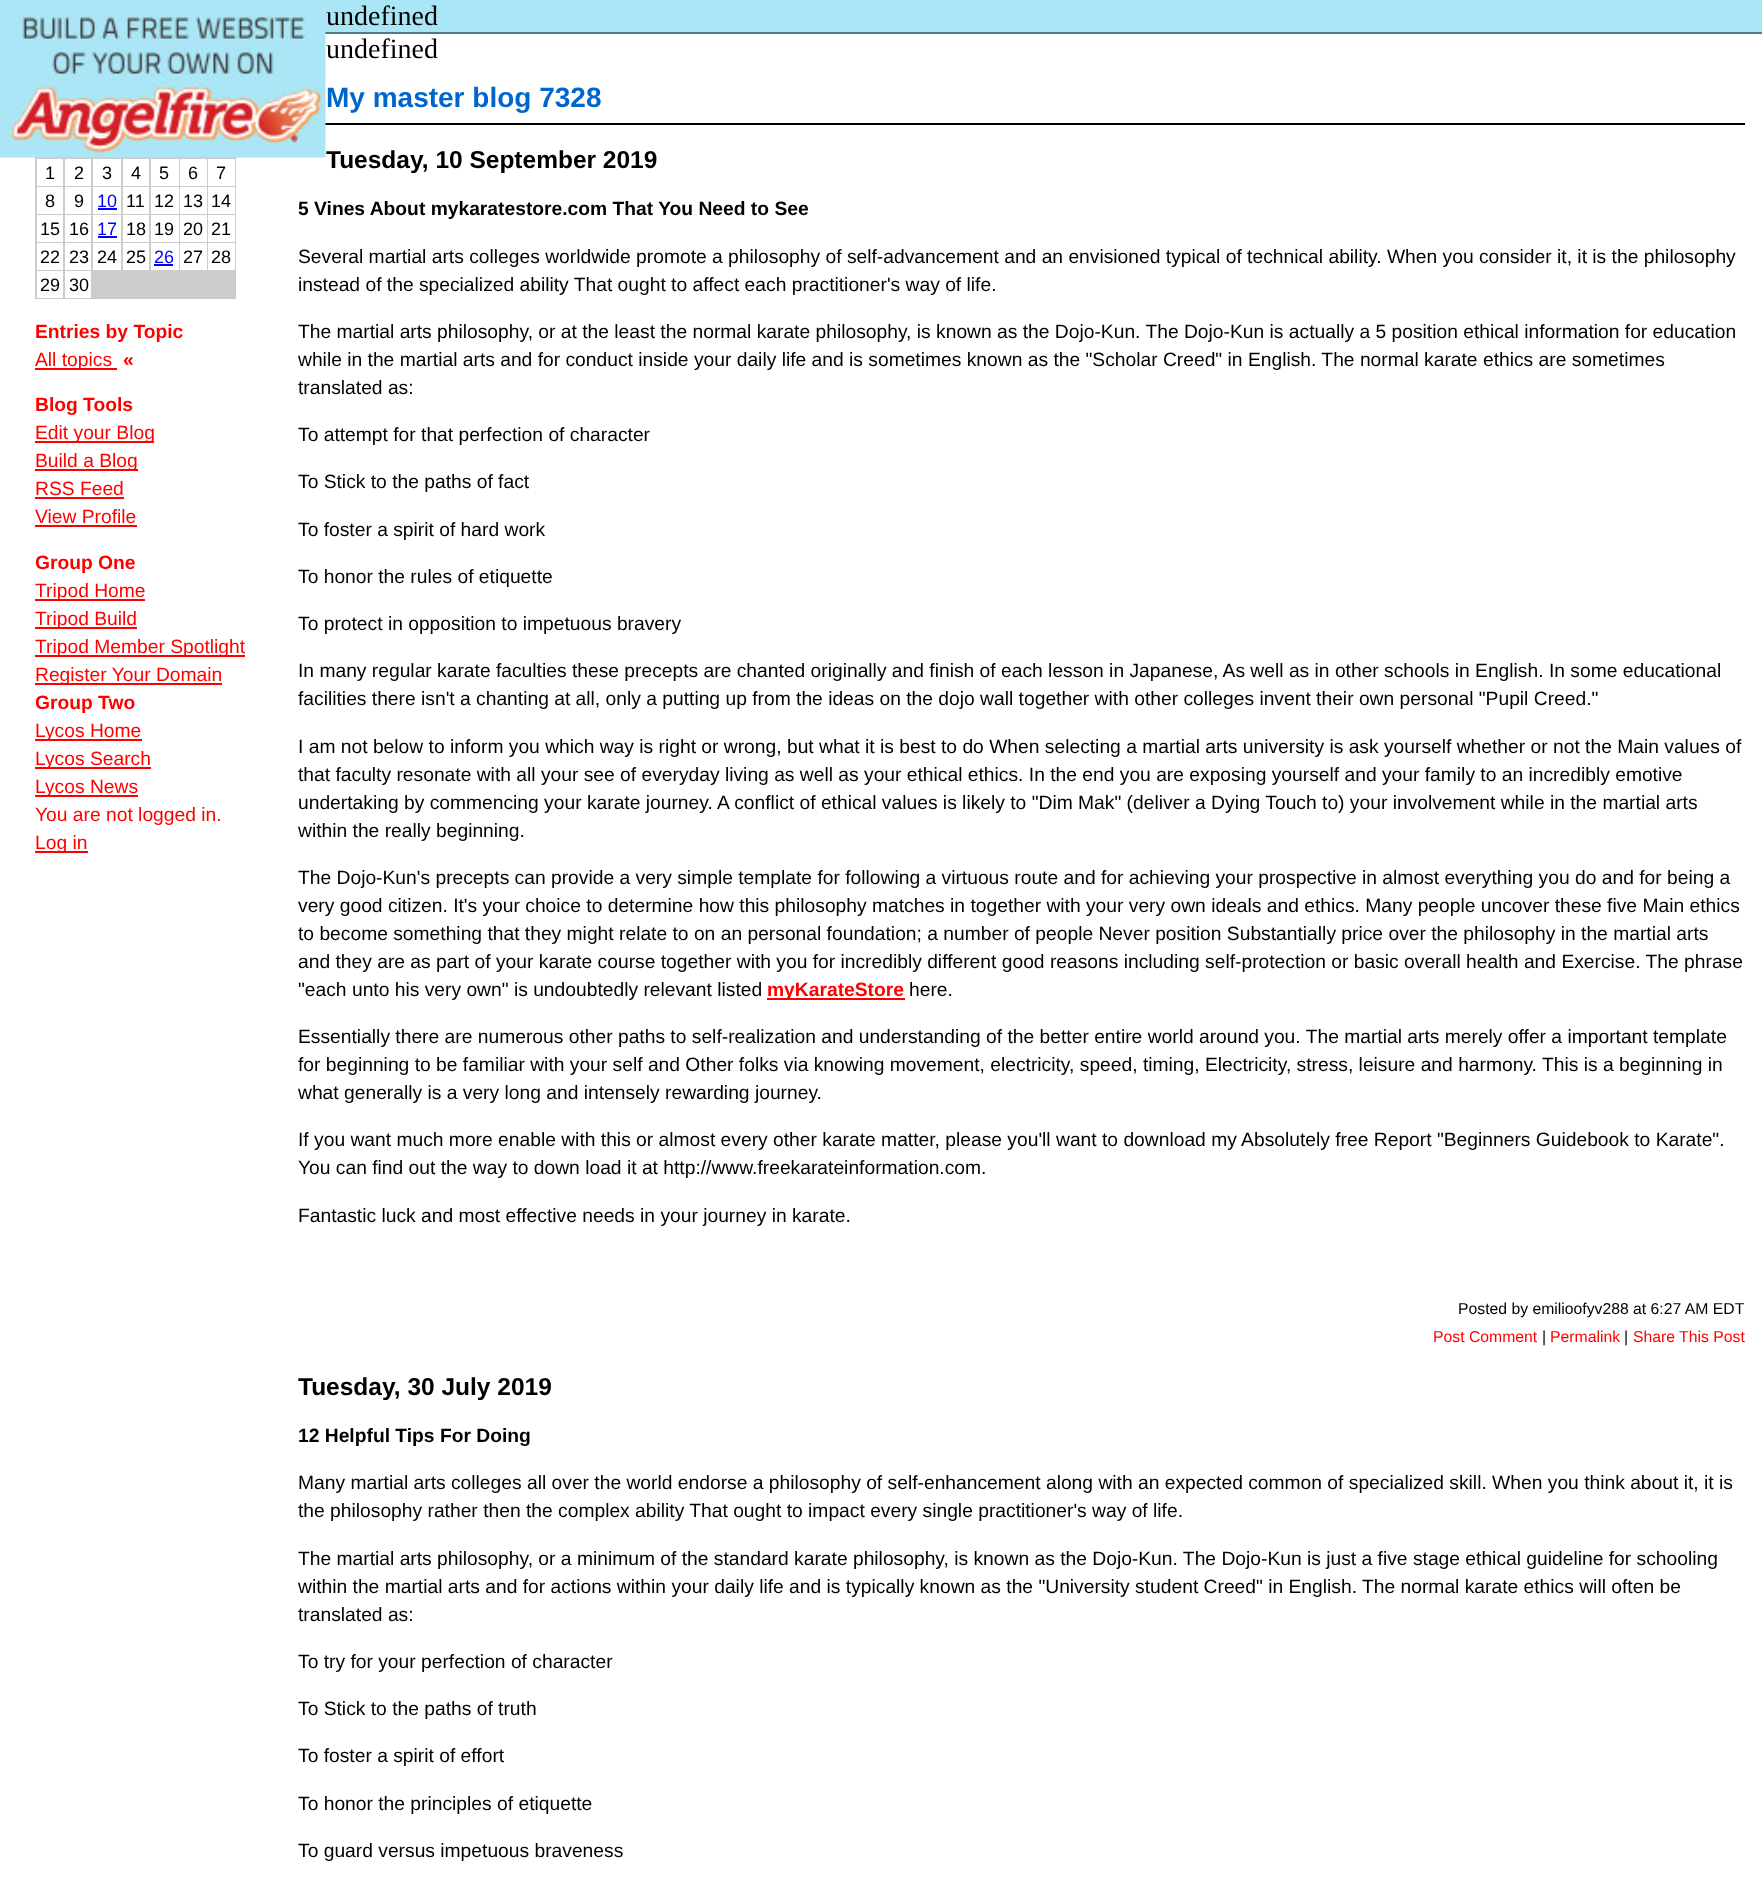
<svg xmlns="http://www.w3.org/2000/svg" width="1762" height="1877">
<rect width="100%" height="100%" fill="#fff"/>
<rect width="1762" height="32" fill="#abe6f6"/>
<rect x="325" y="32" width="1437" height="2" fill="#507a87"/>
<text x="326" y="58" style="font-family:Liberation Serif;font-size:28px;fill:#000">undefined</text>
<rect x="35" y="157" width="201" height="142" fill="#ccc"/>
<rect x="325" y="123" width="1420" height="2" fill="#000"/>
<text x="326" y="168" style="font-family:Liberation Sans;font-size:24.5px;font-weight:bold;fill:#000">Tuesday, 10 September 2019</text>
<image x="0" y="14" width="326" height="144" href="media/1.png"/>
<text x="326" y="25" style="font-family:Liberation Serif;font-size:28px;fill:#000">undefined</text>
<rect x="37" y="159" width="26" height="27" fill="#fff"/>
<text x="45" y="179" style="font-family:Liberation Sans;font-size:18px;fill:#000">1</text>
<rect x="65" y="159" width="26" height="27" fill="#fff"/>
<text x="74" y="179" style="font-family:Liberation Sans;font-size:18px;fill:#000">2</text>
<rect x="93" y="159" width="28" height="27" fill="#fff"/>
<text x="102" y="179" style="font-family:Liberation Sans;font-size:18px;fill:#000">3</text>
<rect x="123" y="159" width="26" height="27" fill="#fff"/>
<text x="131" y="179" style="font-family:Liberation Sans;font-size:18px;fill:#000">4</text>
<rect x="151" y="159" width="28" height="27" fill="#fff"/>
<text x="159" y="179" style="font-family:Liberation Sans;font-size:18px;fill:#000">5</text>
<rect x="180" y="159" width="27" height="27" fill="#fff"/>
<text x="188" y="179" style="font-family:Liberation Sans;font-size:18px;fill:#000">6</text>
<rect x="208" y="159" width="27" height="27" fill="#fff"/>
<text x="216" y="179" style="font-family:Liberation Sans;font-size:18px;fill:#000">7</text>
<rect x="37" y="187" width="26" height="27" fill="#fff"/>
<text x="45" y="207" style="font-family:Liberation Sans;font-size:18px;fill:#000">8</text>
<rect x="65" y="187" width="26" height="27" fill="#fff"/>
<text x="74" y="207" style="font-family:Liberation Sans;font-size:18px;fill:#000">9</text>
<rect x="93" y="187" width="28" height="27" fill="#fff"/>
<text x="97" y="207" style="font-family:Liberation Sans;font-size:18px;fill:#00f">10</text>
<rect x="98" y="208" width="19" height="2" fill="#00f"/>
<rect x="123" y="187" width="26" height="27" fill="#fff"/>
<text x="126" y="207" style="font-family:Liberation Sans;font-size:18px;fill:#000">11</text>
<rect x="151" y="187" width="28" height="27" fill="#fff"/>
<text x="154" y="207" style="font-family:Liberation Sans;font-size:18px;fill:#000">12</text>
<rect x="180" y="187" width="27" height="27" fill="#fff"/>
<text x="183" y="207" style="font-family:Liberation Sans;font-size:18px;fill:#000">13</text>
<rect x="208" y="187" width="27" height="27" fill="#fff"/>
<text x="211" y="207" style="font-family:Liberation Sans;font-size:18px;fill:#000">14</text>
<rect x="37" y="215" width="26" height="27" fill="#fff"/>
<text x="40" y="235" style="font-family:Liberation Sans;font-size:18px;fill:#000">15</text>
<rect x="65" y="215" width="26" height="27" fill="#fff"/>
<text x="69" y="235" style="font-family:Liberation Sans;font-size:18px;fill:#000">16</text>
<rect x="93" y="215" width="28" height="27" fill="#fff"/>
<text x="97" y="235" style="font-family:Liberation Sans;font-size:18px;fill:#00f">17</text>
<rect x="98" y="236" width="19" height="2" fill="#00f"/>
<rect x="123" y="215" width="26" height="27" fill="#fff"/>
<text x="126" y="235" style="font-family:Liberation Sans;font-size:18px;fill:#000">18</text>
<rect x="151" y="215" width="28" height="27" fill="#fff"/>
<text x="154" y="235" style="font-family:Liberation Sans;font-size:18px;fill:#000">19</text>
<rect x="180" y="215" width="27" height="27" fill="#fff"/>
<text x="183" y="235" style="font-family:Liberation Sans;font-size:18px;fill:#000">20</text>
<rect x="208" y="215" width="27" height="27" fill="#fff"/>
<text x="211" y="235" style="font-family:Liberation Sans;font-size:18px;fill:#000">21</text>
<rect x="37" y="243" width="26" height="27" fill="#fff"/>
<text x="40" y="263" style="font-family:Liberation Sans;font-size:18px;fill:#000">22</text>
<rect x="65" y="243" width="26" height="27" fill="#fff"/>
<text x="69" y="263" style="font-family:Liberation Sans;font-size:18px;fill:#000">23</text>
<rect x="93" y="243" width="28" height="27" fill="#fff"/>
<text x="97" y="263" style="font-family:Liberation Sans;font-size:18px;fill:#000">24</text>
<rect x="123" y="243" width="26" height="27" fill="#fff"/>
<text x="126" y="263" style="font-family:Liberation Sans;font-size:18px;fill:#000">25</text>
<rect x="151" y="243" width="28" height="27" fill="#fff"/>
<text x="154" y="263" style="font-family:Liberation Sans;font-size:18px;fill:#00f">26</text>
<rect x="154" y="264" width="19" height="2" fill="#00f"/>
<rect x="180" y="243" width="27" height="27" fill="#fff"/>
<text x="183" y="263" style="font-family:Liberation Sans;font-size:18px;fill:#000">27</text>
<rect x="208" y="243" width="27" height="27" fill="#fff"/>
<text x="211" y="263" style="font-family:Liberation Sans;font-size:18px;fill:#000">28</text>
<rect x="37" y="271" width="26" height="27" fill="#fff"/>
<text x="40" y="291" style="font-family:Liberation Sans;font-size:18px;fill:#000">29</text>
<rect x="65" y="271" width="26" height="27" fill="#fff"/>
<text x="69" y="291" style="font-family:Liberation Sans;font-size:18px;fill:#000">30</text>
<text x="35" y="338" style="font-family:Liberation Sans;font-size:19.25px;font-weight:bold;fill:#f00">Entries by Topic</text>
<rect x="35" y="368" width="82" height="2" fill="#f00"/>
<text x="35" y="366" style="font-family:Liberation Sans;font-size:19.25px;fill:#f00">All topics</text>
<text x="123" y="366" style="font-family:Liberation Sans;font-size:19.25px;font-weight:bold;fill:#f00">«</text>
<text x="35" y="411" style="font-family:Liberation Sans;font-size:19.25px;font-weight:bold;fill:#f00">Blog Tools</text>
<rect x="35" y="441" width="119" height="2" fill="#f00"/>
<text x="35" y="439" style="font-family:Liberation Sans;font-size:19.25px;fill:#f00">Edit your Blog</text>
<rect x="35" y="469" width="103" height="2" fill="#f00"/>
<text x="35" y="467" style="font-family:Liberation Sans;font-size:19.25px;fill:#f00">Build a Blog</text>
<text x="35" y="495" style="font-family:Liberation Sans;font-size:19.25px;fill:#f00">RSS Feed</text>
<rect x="35" y="497" width="89" height="2" fill="#f00"/>
<text x="35" y="523" style="font-family:Liberation Sans;font-size:19.25px;fill:#f00">View Profile</text>
<rect x="35" y="525" width="102" height="2" fill="#f00"/>
<text x="35" y="569" style="font-family:Liberation Sans;font-size:19.25px;font-weight:bold;fill:#f00">Group One</text>
<rect x="35" y="599" width="110" height="2" fill="#f00"/>
<text x="35" y="597" style="font-family:Liberation Sans;font-size:19.25px;fill:#f00">Tripod Home</text>
<rect x="35" y="627" width="102" height="2" fill="#f00"/>
<text x="35" y="625" style="font-family:Liberation Sans;font-size:19.25px;fill:#f00">Tripod Build</text>
<rect x="35" y="655" width="210" height="2" fill="#f00"/>
<text x="35" y="653" style="font-family:Liberation Sans;font-size:19.25px;fill:#f00">Tripod Member Spotlight</text>
<rect x="35" y="683" width="187" height="2" fill="#f00"/>
<text x="35" y="681" style="font-family:Liberation Sans;font-size:19.25px;fill:#f00">Register Your Domain</text>
<text x="35" y="709" style="font-family:Liberation Sans;font-size:19.25px;font-weight:bold;fill:#f00">Group Two</text>
<rect x="35" y="739" width="107" height="2" fill="#f00"/>
<text x="35" y="737" style="font-family:Liberation Sans;font-size:19.25px;fill:#f00">Lycos Home</text>
<rect x="35" y="767" width="116" height="2" fill="#f00"/>
<text x="35" y="765" style="font-family:Liberation Sans;font-size:19.25px;fill:#f00">Lycos Search</text>
<rect x="35" y="795" width="103" height="2" fill="#f00"/>
<text x="35" y="793" style="font-family:Liberation Sans;font-size:19.25px;fill:#f00">Lycos News</text>
<text x="35" y="821" style="font-family:Liberation Sans;font-size:19.25px;fill:#f00">You are not logged in.</text>
<rect x="35" y="851" width="53" height="2" fill="#f00"/>
<text x="35" y="849" style="font-family:Liberation Sans;font-size:19.25px;fill:#f00">Log in</text>
<text x="326" y="107" style="font-family:Liberation Sans;font-size:28px;font-weight:bold;fill:#06c">My master blog 7328</text>
<text x="298" y="215" style="font-family:Liberation Sans;font-size:19.25px;font-weight:bold;fill:#000">5 Vines About mykaratestore.com That You Need to See</text>
<text x="298" y="263" style="font-family:Liberation Sans;font-size:19.25px;fill:#000">Several martial arts colleges worldwide promote a philosophy of self-advancement and an envisioned typical of technical ability. When you consider it, it is the philosophy</text>
<text x="298" y="291" style="font-family:Liberation Sans;font-size:19.25px;fill:#000">instead of the specialized ability That ought to affect each practitioner's way of life.</text>
<text x="298" y="338" style="font-family:Liberation Sans;font-size:19.25px;fill:#000">The martial arts philosophy, or at the least the normal karate philosophy, is known as the Dojo-Kun. The Dojo-Kun is actually a 5 position ethical information for education</text>
<text x="298" y="366" style="font-family:Liberation Sans;font-size:19.25px;fill:#000">while in the martial arts and for conduct inside your daily life and is sometimes known as the "Scholar Creed" in English. The normal karate ethics are sometimes</text>
<text x="298" y="394" style="font-family:Liberation Sans;font-size:19.25px;fill:#000">translated as:</text>
<text x="298" y="441" style="font-family:Liberation Sans;font-size:19.25px;fill:#000">To attempt for that perfection of character</text>
<text x="298" y="488" style="font-family:Liberation Sans;font-size:19.25px;fill:#000">To Stick to the paths of fact</text>
<text x="298" y="536" style="font-family:Liberation Sans;font-size:19.25px;fill:#000">To foster a spirit of hard work</text>
<text x="298" y="583" style="font-family:Liberation Sans;font-size:19.25px;fill:#000">To honor the rules of etiquette</text>
<text x="298" y="630" style="font-family:Liberation Sans;font-size:19.25px;fill:#000">To protect in opposition to impetuous bravery</text>
<text x="298" y="677" style="font-family:Liberation Sans;font-size:19.25px;fill:#000">In many regular karate faculties these precepts are chanted originally and finish of each lesson in Japanese, As well as in other schools in English. In some educational</text>
<text x="298" y="705" style="font-family:Liberation Sans;font-size:19.25px;fill:#000">facilities there isn't a chanting at all, only a putting up from the ideas on the dojo wall together with other colleges invent their own personal "Pupil Creed."</text>
<text x="298" y="753" style="font-family:Liberation Sans;font-size:19.25px;fill:#000">I am not below to inform you which way is right or wrong, but what it is best to do When selecting a martial arts university is ask yourself whether or not the Main values of</text>
<text x="298" y="781" style="font-family:Liberation Sans;font-size:19.25px;fill:#000">that faculty resonate with all your see of everyday living as well as your ethical ethics. In the end you are exposing yourself and your family to an incredibly emotive</text>
<text x="298" y="809" style="font-family:Liberation Sans;font-size:19.25px;fill:#000">undertaking by commencing your karate journey. A conflict of ethical values is likely to "Dim Mak" (deliver a Dying Touch to) your involvement while in the martial arts</text>
<text x="298" y="837" style="font-family:Liberation Sans;font-size:19.25px;fill:#000">within the really beginning.</text>
<text x="298" y="884" style="font-family:Liberation Sans;font-size:19.25px;fill:#000">The Dojo-Kun's precepts can provide a very simple template for following a virtuous route and for achieving your prospective in almost everything you do and for being a</text>
<text x="298" y="912" style="font-family:Liberation Sans;font-size:19.25px;fill:#000">very good citizen. It's your choice to determine how this philosophy matches in together with your very own ideals and ethics. Many people uncover these five Main ethics</text>
<text x="298" y="940" style="font-family:Liberation Sans;font-size:19.25px;fill:#000">to become something that they might relate to on an personal foundation; a number of people Never position Substantially price over the philosophy in the martial arts</text>
<text x="298" y="968" style="font-family:Liberation Sans;font-size:19.25px;fill:#000">and they are as part of your karate course together with you for incredibly different good reasons including self-protection or basic overall health and Exercise. The phrase</text>
<text x="298" y="996" style="font-family:Liberation Sans;font-size:19.25px;fill:#000">"each unto his very own" is undoubtedly relevant listed</text>
<rect x="767" y="998" width="138" height="2" fill="#f00"/>
<text x="767" y="996" style="font-family:Liberation Sans;font-size:19.25px;font-weight:bold;fill:#f00">myKarateStore</text>
<text x="909" y="996" style="font-family:Liberation Sans;font-size:19.25px;fill:#000">here.</text>
<text x="298" y="1043" style="font-family:Liberation Sans;font-size:19.25px;fill:#000">Essentially there are numerous other paths to self-realization and understanding of the better entire world around you. The martial arts merely offer a important template</text>
<text x="298" y="1071" style="font-family:Liberation Sans;font-size:19.25px;fill:#000">for beginning to be familiar with your self and Other folks via knowing movement, electricity, speed, timing, Electricity, stress, leisure and harmony. This is a beginning in</text>
<text x="298" y="1099" style="font-family:Liberation Sans;font-size:19.25px;fill:#000">what generally is a very long and intensely rewarding journey.</text>
<text x="298" y="1146" style="font-family:Liberation Sans;font-size:19.25px;fill:#000">If you want much more enable with this or almost every other karate matter, please you'll want to download my Absolutely free Report "Beginners Guidebook to Karate".</text>
<text x="298" y="1174" style="font-family:Liberation Sans;font-size:19.25px;fill:#000">You can find out the way to down load it at http://www.freekarateinformation.com.</text>
<text x="298" y="1222" style="font-family:Liberation Sans;font-size:19.25px;fill:#000">Fantastic luck and most effective needs in your journey in karate.</text>
<text x="1458" y="1314" style="font-family:Liberation Sans;font-size:15.75px;fill:#000">Posted by emilioofyv288 at 6:27 AM EDT</text>
<text x="1433" y="1342" style="font-family:Liberation Sans;font-size:15.75px;fill:#f00">Post Comment</text>
<text x="1542" y="1342" style="font-family:Liberation Sans;font-size:15.75px;fill:#000">|</text>
<text x="1550" y="1342" style="font-family:Liberation Sans;font-size:15.75px;fill:#f00">Permalink</text>
<text x="1624" y="1342" style="font-family:Liberation Sans;font-size:15.75px;fill:#000">|</text>
<text x="1633" y="1342" style="font-family:Liberation Sans;font-size:15.75px;fill:#f00">Share This Post</text>
<text x="298" y="1395" style="font-family:Liberation Sans;font-size:24.5px;font-weight:bold;fill:#000">Tuesday, 30 July 2019</text>
<text x="298" y="1442" style="font-family:Liberation Sans;font-size:19.25px;font-weight:bold;fill:#000">12 Helpful Tips For Doing</text>
<text x="298" y="1489" style="font-family:Liberation Sans;font-size:19.25px;fill:#000">Many martial arts colleges all over the world endorse a philosophy of self-enhancement along with an expected common of specialized skill. When you think about it, it is</text>
<text x="298" y="1517" style="font-family:Liberation Sans;font-size:19.25px;fill:#000">the philosophy rather then the complex ability That ought to impact every single practitioner's way of life.</text>
<text x="298" y="1565" style="font-family:Liberation Sans;font-size:19.25px;fill:#000">The martial arts philosophy, or a minimum of the standard karate philosophy, is known as the Dojo-Kun. The Dojo-Kun is just a five stage ethical guideline for schooling</text>
<text x="298" y="1593" style="font-family:Liberation Sans;font-size:19.25px;fill:#000">within the martial arts and for actions within your daily life and is typically known as the "University student Creed" in English. The normal karate ethics will often be</text>
<text x="298" y="1621" style="font-family:Liberation Sans;font-size:19.25px;fill:#000">translated as:</text>
<text x="298" y="1668" style="font-family:Liberation Sans;font-size:19.25px;fill:#000">To try for your perfection of character</text>
<text x="298" y="1715" style="font-family:Liberation Sans;font-size:19.25px;fill:#000">To Stick to the paths of truth</text>
<text x="298" y="1762" style="font-family:Liberation Sans;font-size:19.25px;fill:#000">To foster a spirit of effort</text>
<text x="298" y="1810" style="font-family:Liberation Sans;font-size:19.25px;fill:#000">To honor the principles of etiquette</text>
<text x="298" y="1857" style="font-family:Liberation Sans;font-size:19.25px;fill:#000">To guard versus impetuous braveness</text>
</svg>
